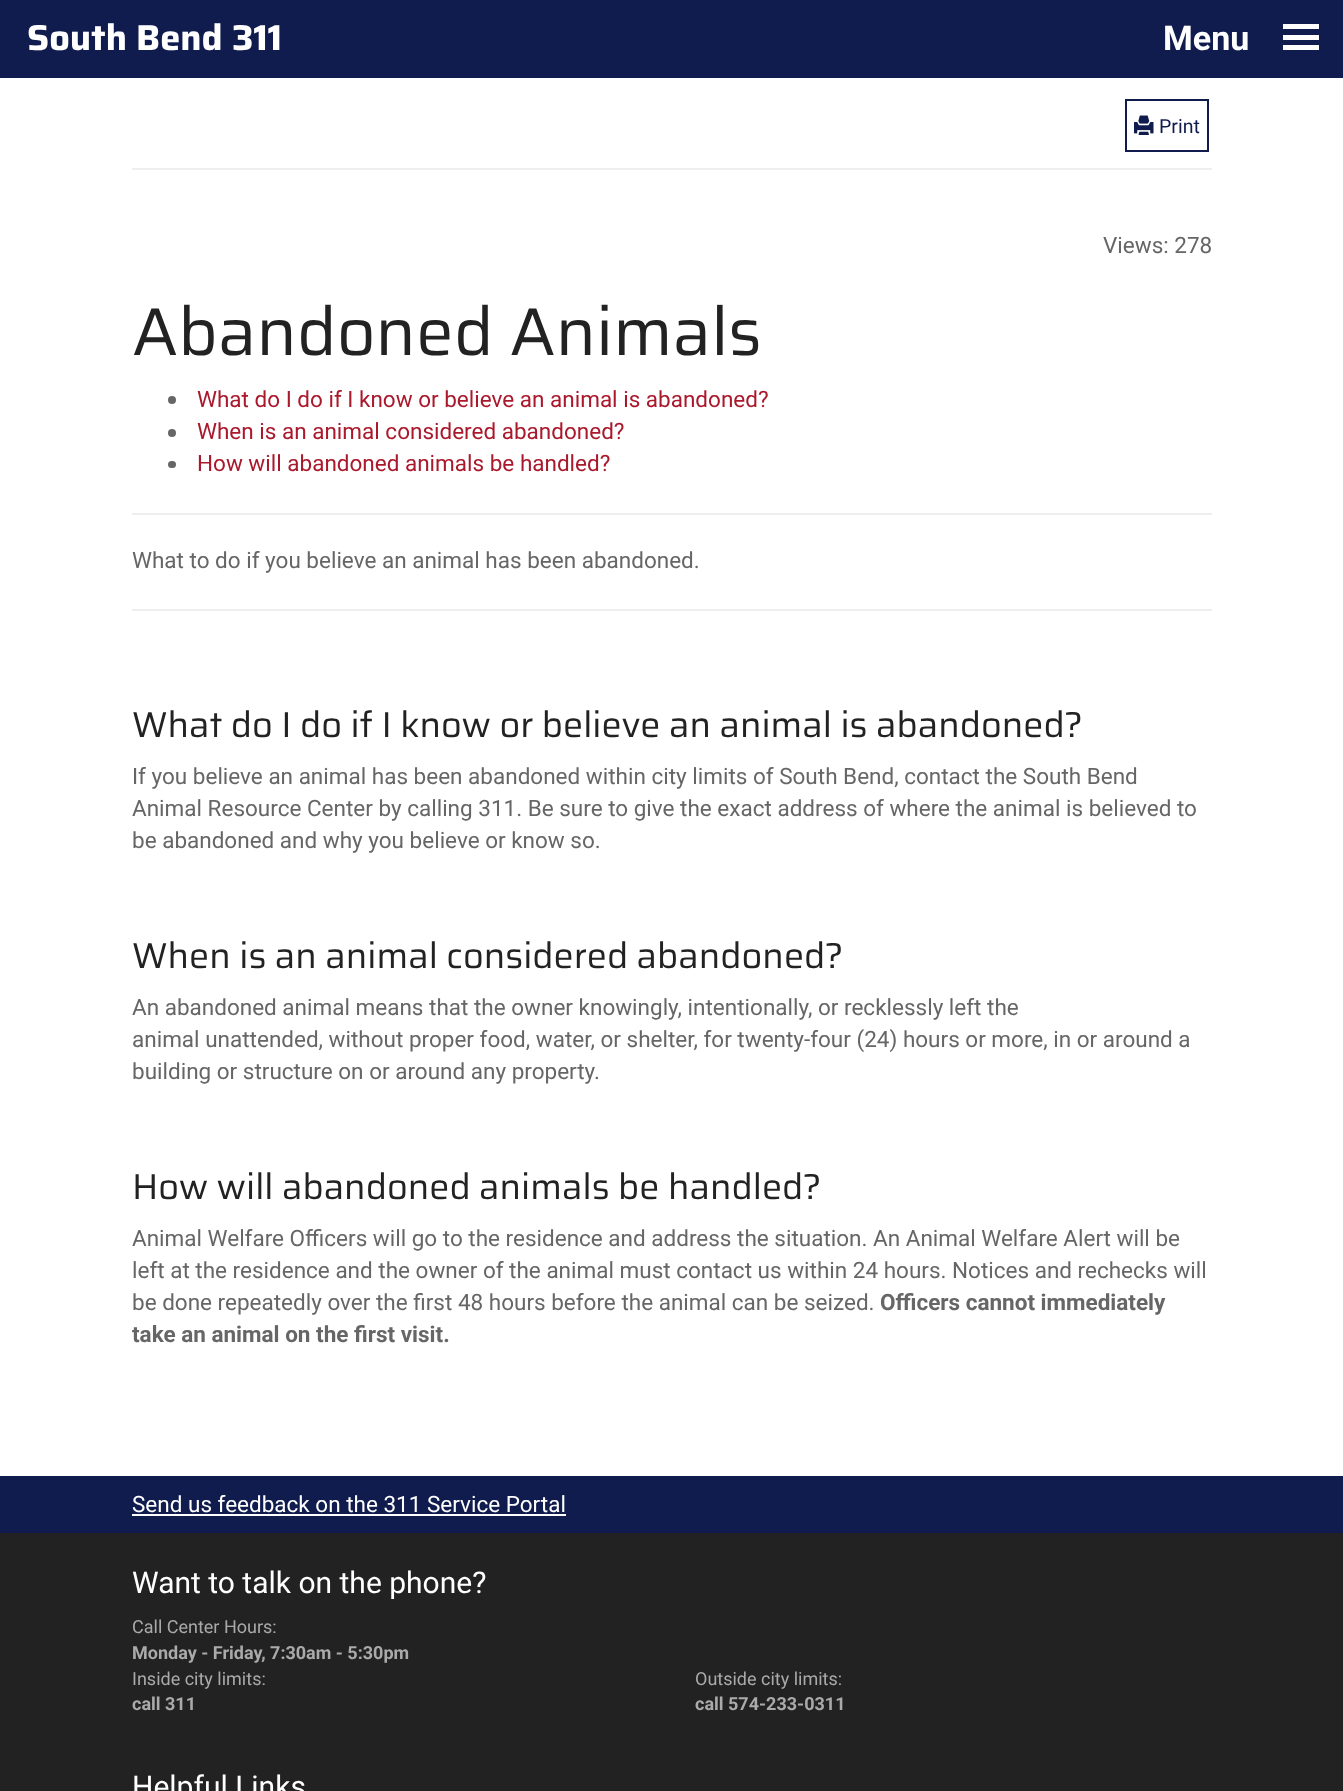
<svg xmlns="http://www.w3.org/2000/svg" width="1343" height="1791">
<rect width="100%" height="100%" fill="#fff"/>
<rect width="1343" height="78" fill="#111c4e"/>
<text x="27" y="50" style="font-family:Saira;font-size:36px;font-weight:bold;fill:#fff">South Bend 311</text>
<text x="1163" y="50" style="font-family:Roboto;font-size:34px;font-weight:bold;fill:#fff">Menu</text>
<rect x="1283" y="24" width="36" height="5" fill="#fff"/>
<rect x="1283" y="35" width="36" height="5" fill="#fff"/>
<rect x="1283" y="45" width="36" height="5" fill="#fff"/>
<rect x="132" y="168" width="1080" height="2" fill="#eee"/>
<rect x="1126" y="100" width="82" height="51" fill="none" stroke="#111c4e" stroke-width="2"/>
<image x="1134" y="115" width="20" height="20" href="media/1.png"/>
<text x="1159" y="133" style="font-family:Roboto;font-size:19.5px;fill:#111c4e">Print</text>
<text x="1103" y="253" style="font-family:Roboto;font-size:22.5px;fill:#666">Views: 278</text>
<text x="132" y="355" style="font-family:Saira;font-size:67.5px;fill:#232222">Abandoned Animals</text>
<circle cx="172" cy="400" r="4" fill="#666"/>
<text x="197" y="407" style="font-family:Roboto;font-size:22.5px;fill:#aa182c">What do I do if I know or believe an animal is abandoned?</text>
<circle cx="172" cy="433" r="4" fill="#666"/>
<text x="197" y="439" style="font-family:Roboto;font-size:22.5px;fill:#aa182c">When is an animal considered abandoned?</text>
<rect x="168" y="461" width="8" height="7" rx="3.5" fill="#666"/>
<text x="197" y="471" style="font-family:Roboto;font-size:22.5px;fill:#aa182c">How will abandoned animals be handled?</text>
<rect x="132" y="513" width="1080" height="2" fill="#eee"/>
<text x="132" y="568" style="font-family:Roboto;font-size:22.5px;fill:#666">What to do if you believe an animal has been abandoned.</text>
<rect x="132" y="609" width="1080" height="2" fill="#eee"/>
<text x="132" y="737" style="font-family:Saira;font-size:36px;fill:#232222">What do I do if I know or believe an animal is abandoned?</text>
<text x="132" y="784" style="font-family:Roboto;font-size:22.5px;fill:#666">If you believe an animal has been abandoned within city limits of South Bend, contact the South Bend</text>
<text x="132" y="816" style="font-family:Roboto;font-size:22.5px;fill:#666">Animal Resource Center by calling 311. Be sure to give the exact address of where the animal is believed to</text>
<text x="132" y="848" style="font-family:Roboto;font-size:22.5px;fill:#666">be abandoned and why you believe or know so.</text>
<text x="132" y="968" style="font-family:Saira;font-size:36px;fill:#232222">When is an animal considered abandoned?</text>
<text x="132" y="1015" style="font-family:Roboto;font-size:22.5px;fill:#666">An abandoned animal means that the owner knowingly, intentionally, or recklessly left the</text>
<text x="132" y="1047" style="font-family:Roboto;font-size:22.5px;fill:#666">animal unattended, without proper food, water, or shelter, for twenty-four (24) hours or more, in or around a</text>
<text x="132" y="1079" style="font-family:Roboto;font-size:22.5px;fill:#666">building or structure on or around any property.</text>
<text x="132" y="1199" style="font-family:Saira;font-size:36px;fill:#232222">How will abandoned animals be handled?</text>
<text x="132" y="1246" style="font-family:Roboto;font-size:22.5px;fill:#666">Animal Welfare Officers will go to the residence and address the situation. An Animal Welfare Alert will be</text>
<text x="132" y="1278" style="font-family:Roboto;font-size:22.5px;fill:#666">left at the residence and the owner of the animal must contact us within 24 hours. Notices and rechecks will</text>
<text x="132" y="1310" style="font-family:Roboto;font-size:22.5px;fill:#666">be done repeatedly over the first 48 hours before the animal can be seized.</text>
<text x="880" y="1310" style="font-family:Roboto;font-size:22.5px;font-weight:bold;fill:#666">Officers cannot immediately</text>
<text x="132" y="1342" style="font-family:Roboto;font-size:22.5px;font-weight:bold;fill:#666">take an animal on the first visit.</text>
<rect y="1476" width="1343" height="57" fill="#111c4e"/>
<text x="132" y="1512" style="font-family:Roboto;font-size:22.5px;fill:#fff">Send us feedback on the 311 Service Portal</text>
<rect x="132" y="1514" width="434" height="2" fill="#fff"/>
<rect y="1533" width="1343" height="258" fill="#232222"/>
<text x="132" y="1593" style="font-family:Roboto;font-size:30px;fill:#fff">Want to talk on the phone?</text>
<text x="132" y="1633" style="font-family:Roboto;font-size:18px;fill:#aaa">Call Center Hours:</text>
<text x="132" y="1659" style="font-family:Roboto;font-size:18px;font-weight:bold;fill:#aaa">Monday - Friday, 7:30am - 5:30pm</text>
<text x="132" y="1685" style="font-family:Roboto;font-size:18px;fill:#aaa">Inside city limits:</text>
<text x="132" y="1710" style="font-family:Roboto;font-size:18px;font-weight:bold;fill:#aaa">call 311</text>
<text x="695" y="1685" style="font-family:Roboto;font-size:18px;fill:#aaa">Outside city limits:</text>
<text x="695" y="1710" style="font-family:Roboto;font-size:18px;font-weight:bold;fill:#aaa">call 574-233-0311</text>
<text x="132" y="1797" style="font-family:Roboto;font-size:30px;fill:#fff">Helpful Links</text>
</svg>
